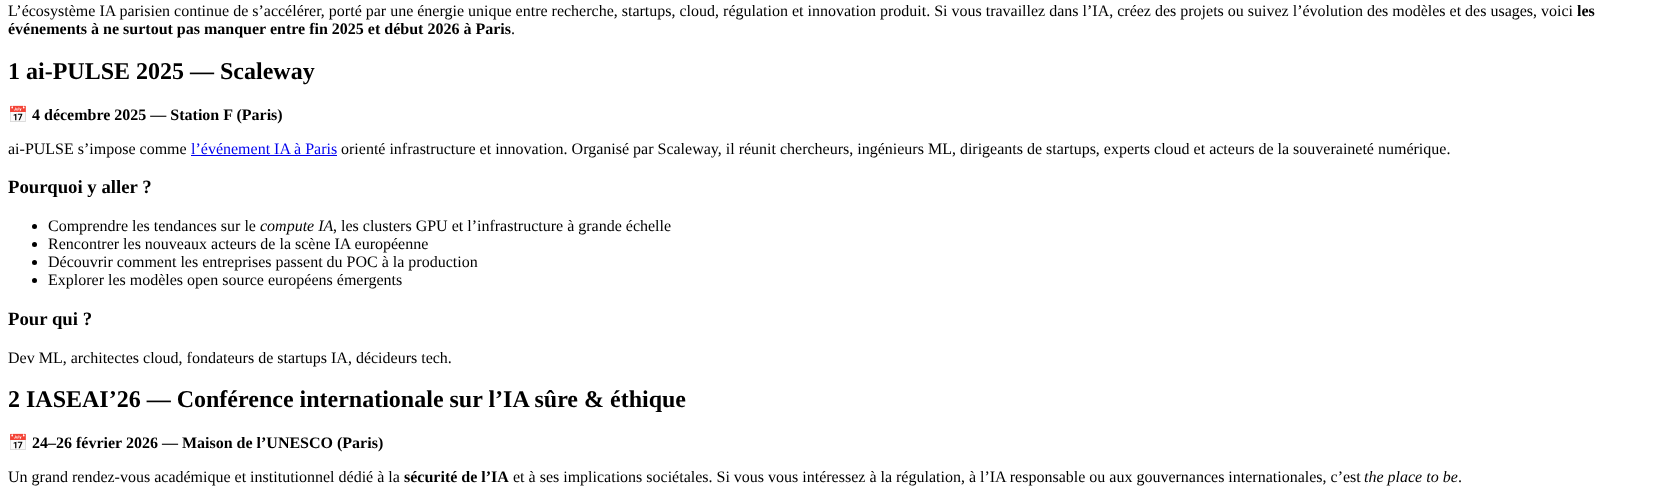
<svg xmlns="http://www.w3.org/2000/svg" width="1667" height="490">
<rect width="100%" height="100%" fill="#fff"/>
<text x="8" y="16" style="font-family:Liberation Serif;font-size:16px;fill:#000">L’écosystème IA parisien continue de s’accélérer, porté par une énergie unique entre recherche, startups, cloud, régulation et innovation produit. Si vous travaillez dans l’IA, créez des projets ou suivez l’évolution des modèles et des usages, voici</text>
<text x="1577" y="16" style="font-family:Liberation Serif;font-size:16px;font-weight:bold;fill:#000">les</text>
<text x="8" y="34" style="font-family:Liberation Serif;font-size:16px;font-weight:bold;fill:#000">événements à ne surtout pas manquer entre fin 2025 et début 2026 à Paris</text>
<text x="511" y="34" style="font-family:Liberation Serif;font-size:16px;fill:#000">.</text>
<text x="8" y="79" style="font-family:Liberation Serif;font-size:24px;font-weight:bold;fill:#000">1 ai-PULSE 2025 — Scaleway</text>
<text x="8" y="120" style="font-family:Noto Color Emoji;font-size:16px;font-weight:bold;fill:#000">📅</text>
<text x="32" y="120" style="font-family:Liberation Serif;font-size:16px;font-weight:bold;fill:#000">4 décembre 2025 — Station F (Paris)</text>
<text x="8" y="154" style="font-family:Liberation Serif;font-size:16px;fill:#000">ai-PULSE s’impose comme</text>
<text x="191" y="154" style="font-family:Liberation Serif;font-size:16px;fill:#00e">l’événement IA à Paris</text>
<rect x="191" y="155" width="146" height="1" fill="#00e"/>
<text x="341" y="154" style="font-family:Liberation Serif;font-size:16px;fill:#000">orienté infrastructure et innovation. Organisé par Scaleway, il réunit chercheurs, ingénieurs ML, dirigeants de startups, experts cloud et acteurs de la souveraineté numérique.</text>
<text x="8" y="193" style="font-family:Liberation Serif;font-size:18.75px;font-weight:bold;fill:#000">Pourquoi y aller ?</text>
<circle cx="34.5" cy="226.5" r="2.5" fill="#000"/>
<text x="48" y="231" style="font-family:Liberation Serif;font-size:16px;fill:#000">Comprendre les tendances sur le</text>
<text x="260" y="231" style="font-family:Liberation Serif;font-size:16px;font-style:italic;fill:#000">compute IA</text>
<text x="333" y="231" style="font-family:Liberation Serif;font-size:16px;fill:#000">, les clusters GPU et l’infrastructure à grande échelle</text>
<circle cx="34.5" cy="244.5" r="2.5" fill="#000"/>
<text x="48" y="249" style="font-family:Liberation Serif;font-size:16px;fill:#000">Rencontrer les nouveaux acteurs de la scène IA européenne</text>
<circle cx="34.5" cy="262.5" r="2.5" fill="#000"/>
<text x="48" y="267" style="font-family:Liberation Serif;font-size:16px;fill:#000">Découvrir comment les entreprises passent du POC à la production</text>
<circle cx="34.5" cy="280.5" r="2.5" fill="#000"/>
<text x="48" y="285" style="font-family:Liberation Serif;font-size:16px;fill:#000">Explorer les modèles open source européens émergents</text>
<text x="8" y="325" style="font-family:Liberation Serif;font-size:18.75px;font-weight:bold;fill:#000">Pour qui ?</text>
<text x="8" y="363" style="font-family:Liberation Serif;font-size:16px;fill:#000">Dev ML, architectes cloud, fondateurs de startups IA, décideurs tech.</text>
<text x="8" y="407" style="font-family:Liberation Serif;font-size:24px;font-weight:bold;fill:#000">2 IASEAI’26 — Conférence internationale sur l’IA sûre &amp; éthique</text>
<text x="8" y="448" style="font-family:Noto Color Emoji;font-size:16px;font-weight:bold;fill:#000">📅</text>
<text x="32" y="448" style="font-family:Liberation Serif;font-size:16px;font-weight:bold;fill:#000">24–26 février 2026 — Maison de l’UNESCO (Paris)</text>
<text x="8" y="482" style="font-family:Liberation Serif;font-size:16px;fill:#000">Un grand rendez-vous académique et institutionnel dédié à la</text>
<text x="404" y="482" style="font-family:Liberation Serif;font-size:16px;font-weight:bold;fill:#000">sécurité de l’IA</text>
<text x="513" y="482" style="font-family:Liberation Serif;font-size:16px;fill:#000">et à ses implications sociétales. Si vous vous intéressez à la régulation, à l’IA responsable ou aux gouvernances internationales, c’est</text>
<text x="1364" y="482" style="font-family:Liberation Serif;font-size:16px;font-style:italic;fill:#000">the place to be</text>
<text x="1458" y="482" style="font-family:Liberation Serif;font-size:16px;fill:#000">.</text>
</svg>
